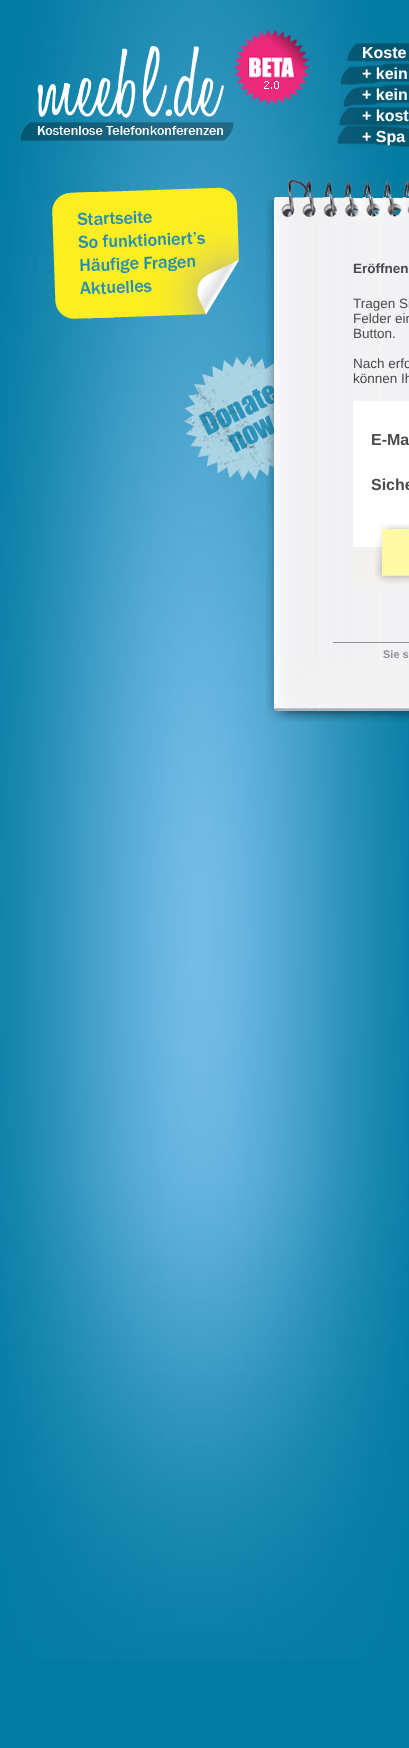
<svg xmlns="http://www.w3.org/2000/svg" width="409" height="1748">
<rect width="100%" height="100%" fill="#047ca1"/>
<image x="0" y="0" width="409" height="1660" href="media/1.png"/>
<image x="20" y="46" width="214" height="95" href="media/2.png"/>
<image x="234" y="30" width="76" height="75" href="media/3.png"/>
<image x="337" y="43" width="72" height="104" href="media/4.png"/>
<text x="362" y="58" style="font-family:Liberation Sans;font-size:16px;font-weight:bold;fill:#fff">Koste</text>
<text x="362" y="79" style="font-family:Liberation Sans;font-size:16px;font-weight:bold;fill:#fff">+ kein</text>
<text x="362" y="100" style="font-family:Liberation Sans;font-size:16px;font-weight:bold;fill:#fff">+ kein</text>
<text x="362" y="121" style="font-family:Liberation Sans;font-size:16px;font-weight:bold;fill:#fff">+ kost</text>
<text x="362" y="142" style="font-family:Liberation Sans;font-size:16px;font-weight:bold;fill:#fff">+ Spa</text>
<image x="52" y="187" width="187" height="132" href="media/5.png"/>
<image x="77" y="210" width="75" height="16" href="media/6.png"/>
<image x="78" y="231" width="127" height="18" href="media/7.png"/>
<image x="80" y="256" width="116" height="18" href="media/8.png"/>
<image x="80" y="279" width="72" height="16" href="media/9.png"/>
<image x="266" y="175" width="143" height="46" href="media/10.png"/>
<image x="266" y="221" width="143" height="439" href="media/12.png"/>
<image x="184" y="356" width="90" height="125" href="media/11.png"/>
<text x="353" y="273" style="font-family:Liberation Sans;font-size:13.5px;font-weight:bold;fill:#494a4d">Eröffnen</text>
<text x="353" y="308" style="font-family:Liberation Sans;font-size:13.5px;fill:#494a4d">Tragen Si</text>
<text x="353" y="323" style="font-family:Liberation Sans;font-size:13.5px;fill:#494a4d">Felder ein</text>
<text x="353" y="338" style="font-family:Liberation Sans;font-size:13.5px;fill:#494a4d">Button.</text>
<text x="353" y="368" style="font-family:Liberation Sans;font-size:13.5px;fill:#494a4d">Nach erfo</text>
<text x="353" y="383" style="font-family:Liberation Sans;font-size:13.5px;fill:#494a4d">können Ih</text>
<rect x="353" y="401" width="56" height="146" fill="#fff"/>
<image x="353" y="547" width="56" height="39" href="media/13.png"/>
<text x="371" y="445" style="font-family:Liberation Sans;font-size:16px;font-weight:bold;fill:#494a4d">E-Ma</text>
<text x="371" y="490" style="font-family:Liberation Sans;font-size:16px;font-weight:bold;fill:#494a4d">Siche</text>
<image x="375" y="524" width="34" height="60" href="media/14.png"/>
<rect x="333" y="642" width="76" height="1" fill="#8f9197"/>
<text x="383" y="658" style="font-family:Liberation Sans;font-size:11px;font-weight:bold;fill:#8f9197">Sie s</text>
<image x="266" y="660" width="143" height="62" href="media/15.png"/>
</svg>
